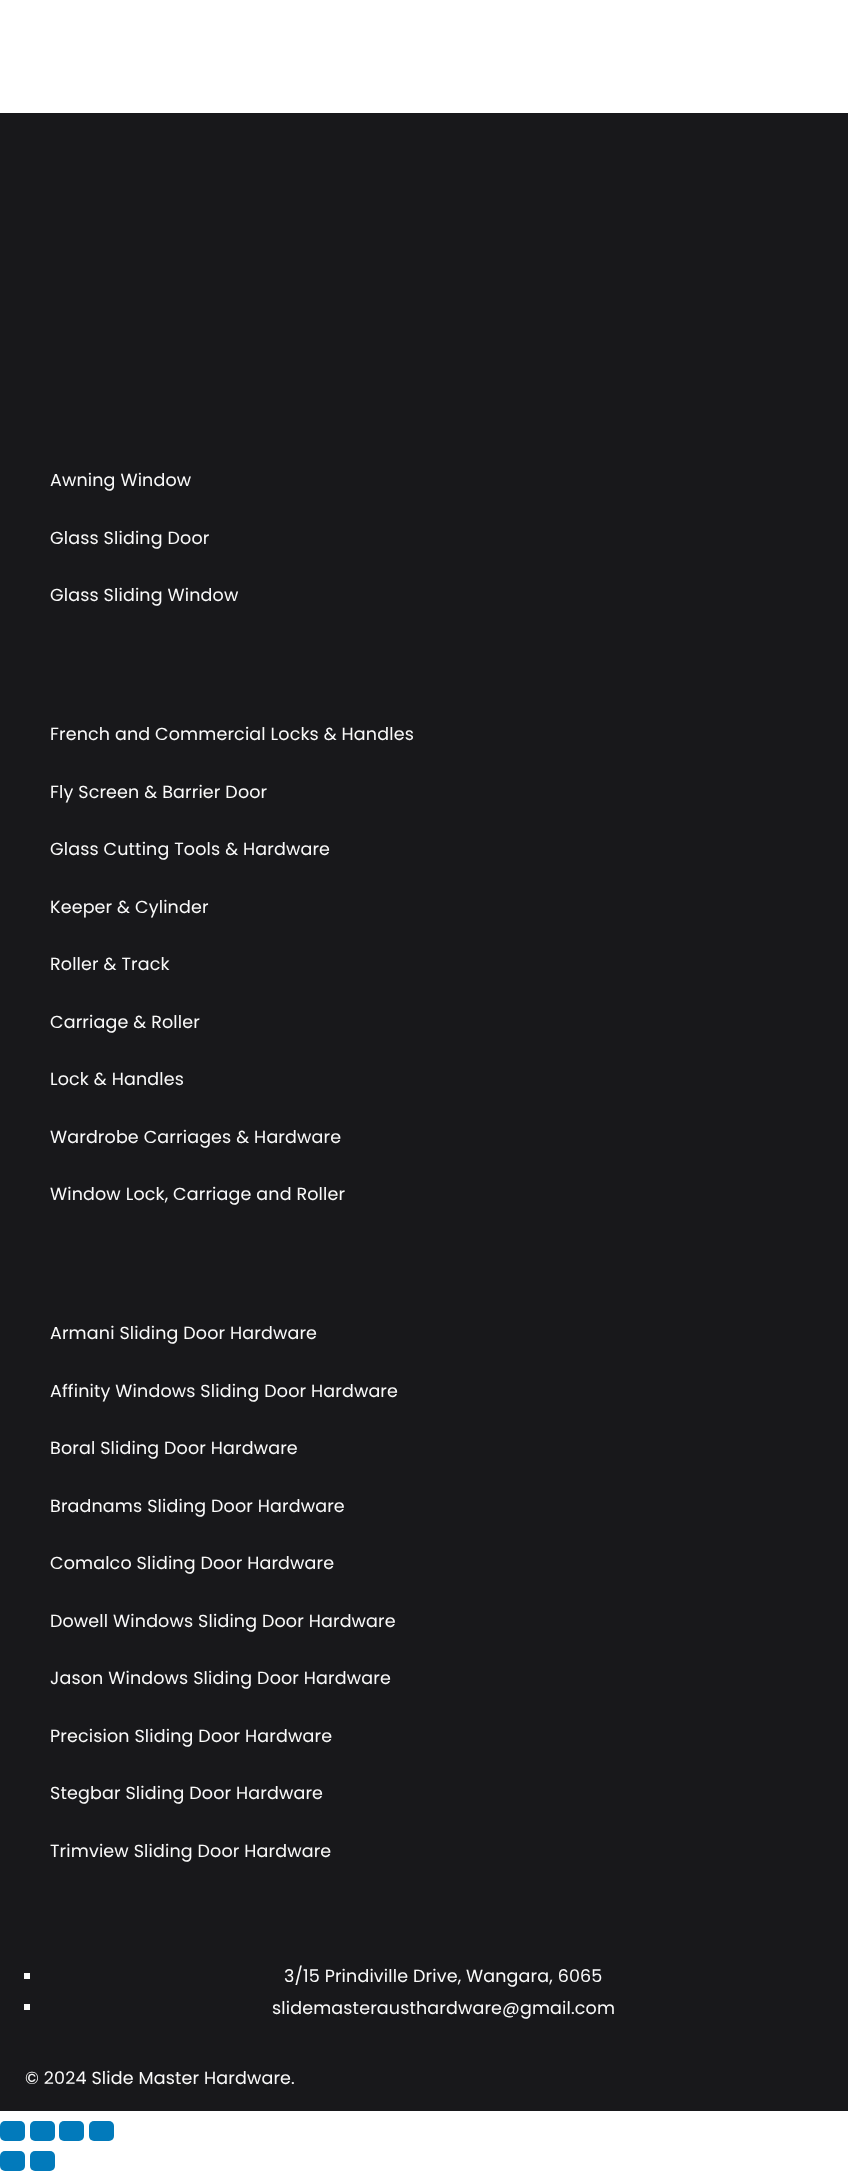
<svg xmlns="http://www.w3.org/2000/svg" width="848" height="2171">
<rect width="100%" height="100%" fill="#fff"/>
<rect y="113" width="848" height="1998" fill="#18181b"/>
<text x="50" y="486" style="font-family:Poppins;font-size:17.5px;letter-spacing:0.15px;fill:#fafafa">Awning Window</text>
<text x="50" y="544" style="font-family:Poppins;font-size:17.5px;letter-spacing:0.15px;fill:#fafafa">Glass Sliding Door</text>
<text x="50" y="601" style="font-family:Poppins;font-size:17.5px;letter-spacing:0.15px;fill:#fafafa">Glass Sliding Window</text>
<text x="50" y="740" style="font-family:Poppins;font-size:17.5px;letter-spacing:0.15px;fill:#fafafa">French and Commercial Locks &amp; Handles</text>
<text x="50" y="798" style="font-family:Poppins;font-size:17.5px;letter-spacing:0.15px;fill:#fafafa">Fly Screen &amp; Barrier Door</text>
<text x="50" y="855" style="font-family:Poppins;font-size:17.5px;letter-spacing:0.15px;fill:#fafafa">Glass Cutting Tools &amp; Hardware</text>
<text x="50" y="913" style="font-family:Poppins;font-size:17.5px;letter-spacing:0.15px;fill:#fafafa">Keeper &amp; Cylinder</text>
<text x="50" y="970" style="font-family:Poppins;font-size:17.5px;letter-spacing:0.15px;fill:#fafafa">Roller &amp; Track</text>
<text x="50" y="1028" style="font-family:Poppins;font-size:17.5px;letter-spacing:0.15px;fill:#fafafa">Carriage &amp; Roller</text>
<text x="50" y="1085" style="font-family:Poppins;font-size:17.5px;letter-spacing:0.15px;fill:#fafafa">Lock &amp; Handles</text>
<text x="50" y="1143" style="font-family:Poppins;font-size:17.5px;letter-spacing:0.15px;fill:#fafafa">Wardrobe Carriages &amp; Hardware</text>
<text x="50" y="1200" style="font-family:Poppins;font-size:17.5px;letter-spacing:0.15px;fill:#fafafa">Window Lock, Carriage and Roller</text>
<text x="50" y="1339" style="font-family:Poppins;font-size:17.5px;letter-spacing:0.15px;fill:#fafafa">Armani Sliding Door Hardware</text>
<text x="50" y="1397" style="font-family:Poppins;font-size:17.5px;letter-spacing:0.15px;fill:#fafafa">Affinity Windows Sliding Door Hardware</text>
<text x="50" y="1454" style="font-family:Poppins;font-size:17.5px;letter-spacing:0.15px;fill:#fafafa">Boral Sliding Door Hardware</text>
<text x="50" y="1512" style="font-family:Poppins;font-size:17.5px;letter-spacing:0.15px;fill:#fafafa">Bradnams Sliding Door Hardware</text>
<text x="50" y="1569" style="font-family:Poppins;font-size:17.5px;letter-spacing:0.15px;fill:#fafafa">Comalco Sliding Door Hardware</text>
<text x="50" y="1627" style="font-family:Poppins;font-size:17.5px;letter-spacing:0.15px;fill:#fafafa">Dowell Windows Sliding Door Hardware</text>
<text x="50" y="1684" style="font-family:Poppins;font-size:17.5px;letter-spacing:0.15px;fill:#fafafa">Jason Windows Sliding Door Hardware</text>
<text x="50" y="1742" style="font-family:Poppins;font-size:17.5px;letter-spacing:0.15px;fill:#fafafa">Precision Sliding Door Hardware</text>
<text x="50" y="1799" style="font-family:Poppins;font-size:17.5px;letter-spacing:0.15px;fill:#fafafa">Stegbar Sliding Door Hardware</text>
<text x="50" y="1857" style="font-family:Poppins;font-size:17.5px;letter-spacing:0.15px;fill:#fafafa">Trimview Sliding Door Hardware</text>
<rect x="24" y="1973" width="6" height="6" fill="#fafafa"/>
<text x="284" y="1982" style="font-family:Poppins;font-size:17.5px;letter-spacing:0.15px;fill:#fafafa">3/15 Prindiville Drive, Wangara, 6065</text>
<rect x="24" y="2004" width="6" height="6" fill="#fafafa"/>
<text x="272" y="2014" style="font-family:Poppins;font-size:17.5px;letter-spacing:0.15px;fill:#fafafa">slidemasterausthardware@gmail.com</text>
<text x="25" y="2084" style="font-family:Poppins;font-size:17.5px;letter-spacing:0.15px;fill:#fafafa">© 2024 Slide Master Hardware.</text>
<rect y="2121" width="25" height="20" rx="5" fill="#027abb"/>
<rect x="30" y="2121" width="25" height="20" rx="5" fill="#027abb"/>
<rect x="59" y="2121" width="25" height="20" rx="5" fill="#027abb"/>
<rect x="89" y="2121" width="25" height="20" rx="5" fill="#027abb"/>
<rect y="2151" width="25" height="20" rx="5" fill="#027abb"/>
<rect x="30" y="2151" width="25" height="20" rx="5" fill="#027abb"/>
</svg>
